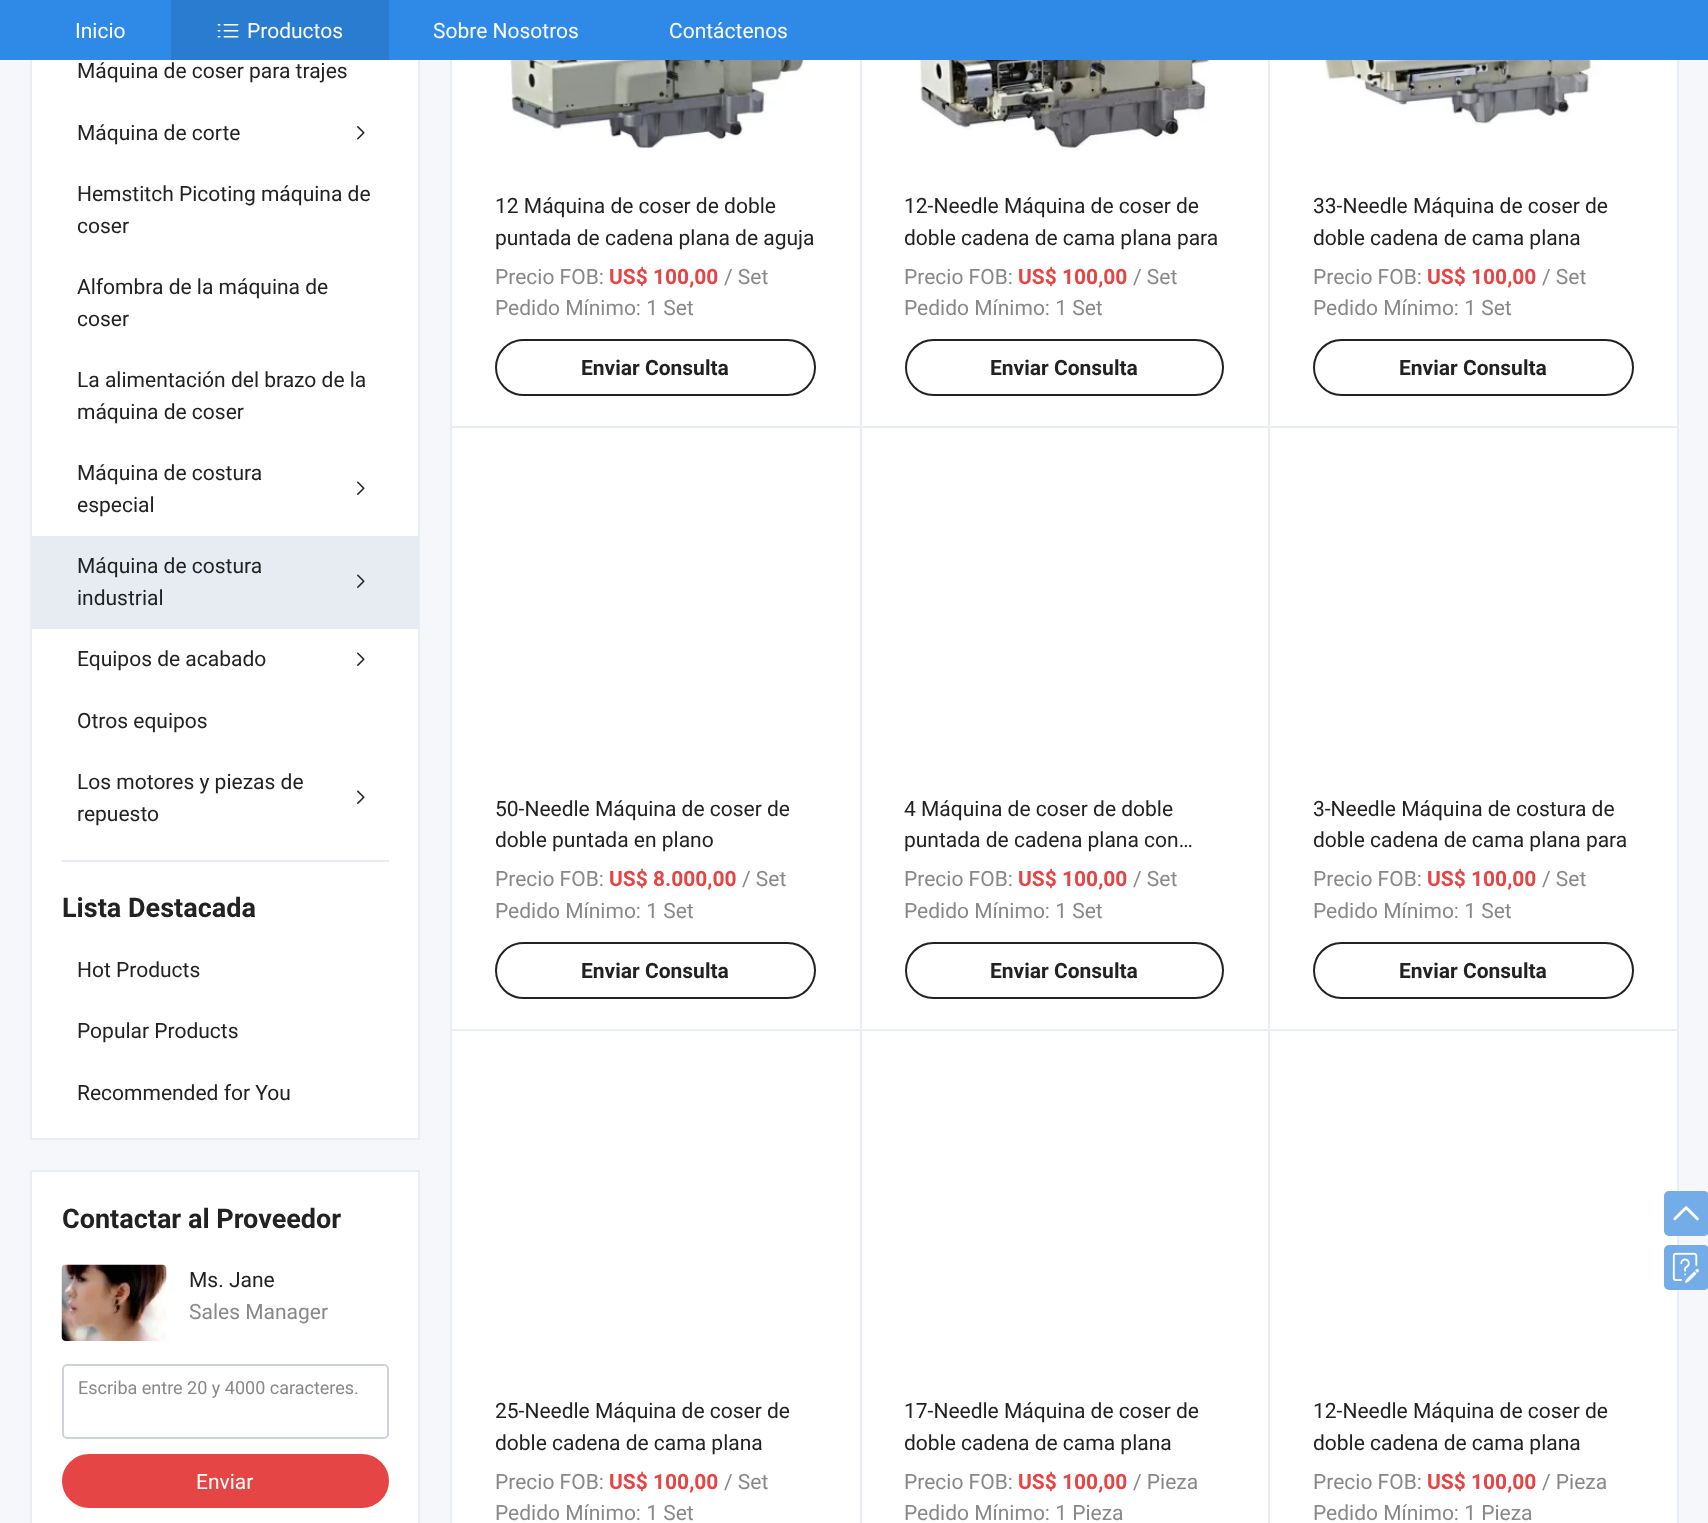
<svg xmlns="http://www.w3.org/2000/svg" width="1708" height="1523">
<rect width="100%" height="100%" fill="#f5f7fa"/>
<rect x="32" y="60" width="386" height="1078" fill="#fff"/>
<rect x="31" y="-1" width="388" height="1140" fill="none" stroke="#e9eef4" stroke-width="2"/>
<rect x="452" y="60" width="1225" height="1463" fill="#fff"/>
<rect x="451" y="-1" width="1227" height="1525" fill="none" stroke="#e9eef4" stroke-width="2"/>
<rect width="1708" height="60" fill="#2e8ae6"/>
<text x="75" y="38" style="font-family:Roboto;font-size:21px;fill:#fff">Inicio</text>
<rect x="171" width="218" height="60" fill="#297ccf"/>
<image x="217" y="24" width="22" height="14" href="media/1.png"/>
<text x="247" y="38" style="font-family:Roboto;font-size:21px;fill:#fff">Productos</text>
<text x="433" y="38" style="font-family:Roboto;font-size:21px;fill:#fff">Sobre Nosotros</text>
<text x="669" y="38" style="font-family:Roboto;font-size:21px;fill:#fff">Contáctenos</text>
<rect x="62" y="860" width="327" height="2" fill="#e6ecf2"/>
<text x="77" y="78" style="font-family:Roboto;font-size:21px;fill:#222">Máquina de coser para trajes</text>
<text x="77" y="140" style="font-family:Roboto;font-size:21px;fill:#222">Máquina de corte</text>
<image x="357" y="126" width="8" height="14" href="media/2.png"/>
<text x="77" y="201" style="font-family:Roboto;font-size:21px;fill:#222">Hemstitch Picoting máquina de</text>
<text x="77" y="233" style="font-family:Roboto;font-size:21px;fill:#222">coser</text>
<text x="77" y="294" style="font-family:Roboto;font-size:21px;fill:#222">Alfombra de la máquina de</text>
<text x="77" y="326" style="font-family:Roboto;font-size:21px;fill:#222">coser</text>
<text x="77" y="387" style="font-family:Roboto;font-size:21px;fill:#222">La alimentación del brazo de la</text>
<text x="77" y="419" style="font-family:Roboto;font-size:21px;fill:#222">máquina de coser</text>
<text x="77" y="480" style="font-family:Roboto;font-size:21px;fill:#222">Máquina de costura</text>
<image x="357" y="481" width="8" height="14" href="media/3.png"/>
<text x="77" y="512" style="font-family:Roboto;font-size:21px;fill:#222">especial</text>
<rect x="32" y="536" width="387" height="93" fill="#e6ecf2"/>
<text x="77" y="573" style="font-family:Roboto;font-size:21px;fill:#222">Máquina de costura</text>
<image x="357" y="574" width="8" height="14" href="media/4.png"/>
<text x="77" y="605" style="font-family:Roboto;font-size:21px;fill:#222">industrial</text>
<text x="77" y="666" style="font-family:Roboto;font-size:21px;fill:#222">Equipos de acabado</text>
<image x="357" y="652" width="8" height="14" href="media/3.png"/>
<text x="77" y="728" style="font-family:Roboto;font-size:21px;fill:#222">Otros equipos</text>
<text x="77" y="789" style="font-family:Roboto;font-size:21px;fill:#222">Los motores y piezas de</text>
<image x="357" y="790" width="8" height="14" href="media/3.png"/>
<text x="77" y="821" style="font-family:Roboto;font-size:21px;fill:#222">repuesto</text>
<text x="62" y="917" style="font-family:Roboto;font-size:27px;font-weight:bold;fill:#222">Lista Destacada</text>
<text x="77" y="977" style="font-family:Roboto;font-size:21px;fill:#222">Hot Products</text>
<text x="77" y="1038" style="font-family:Roboto;font-size:21px;fill:#222">Popular Products</text>
<text x="77" y="1100" style="font-family:Roboto;font-size:21px;fill:#222">Recommended for You</text>
<rect x="31" y="1171" width="388" height="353" fill="#fff" stroke="#e9eef4" stroke-width="2"/>
<text x="62" y="1228" style="font-family:Roboto;font-size:27px;font-weight:bold;fill:#222">Contactar al Proveedor</text>
<image x="61" y="1264" width="106" height="77" href="media/5.png"/>
<text x="189" y="1287" style="font-family:Roboto;font-size:21px;fill:#222">Ms. Jane</text>
<text x="189" y="1319" style="font-family:Roboto;font-size:21px;fill:#888">Sales Manager</text>
<rect x="63" y="1365" width="325" height="73" rx="4" fill="none" stroke="#ced3d9" stroke-width="2"/>
<text x="78" y="1394" style="font-family:Roboto;font-size:18px;fill:#888">Escriba entre 20 y 4000 caracteres.</text>
<rect x="63" y="1455" width="325" height="52" rx="26" fill="#e64545" stroke="#e64545" stroke-width="2"/>
<text x="196" y="1489" style="font-family:Roboto;font-size:21px;fill:#fff">Enviar</text>
<rect x="860" y="60" width="2" height="1463" fill="#e9eef4"/>
<rect x="452" y="426" width="409" height="2" fill="#e9eef4"/>
<image x="508" y="60" width="297" height="89" href="media/6.png"/>
<text x="495" y="213" style="font-family:Roboto;font-size:21px;fill:#222">12 Máquina de coser de doble</text>
<text x="495" y="245" style="font-family:Roboto;font-size:21px;fill:#222">puntada de cadena plana de aguja</text>
<text x="495" y="284" style="font-family:Roboto;font-size:21px;fill:#888">Precio FOB:</text>
<text x="609" y="284" style="font-family:Roboto;font-size:21px;font-weight:bold;fill:#e64545">US$ 100,00</text>
<text x="724" y="284" style="font-family:Roboto;font-size:21px;fill:#888">/ Set</text>
<text x="495" y="315" style="font-family:Roboto;font-size:21px;fill:#888">Pedido Mínimo: 1 Set</text>
<rect x="496" y="340" width="319" height="55" rx="27.5" fill="none" stroke="#222" stroke-width="2"/>
<text x="581" y="375" style="font-family:Roboto;font-size:21px;font-weight:bold;fill:#222">Enviar Consulta</text>
<rect x="1268" y="60" width="2" height="1463" fill="#e9eef4"/>
<rect x="861" y="426" width="818" height="2" fill="#e9eef4"/>
<image x="917" y="60" width="299" height="90" href="media/7.png"/>
<text x="904" y="213" style="font-family:Roboto;font-size:21px;fill:#222">12-Needle Máquina de coser de</text>
<text x="904" y="245" style="font-family:Roboto;font-size:21px;fill:#222">doble cadena de cama plana para</text>
<text x="904" y="284" style="font-family:Roboto;font-size:21px;fill:#888">Precio FOB:</text>
<text x="1018" y="284" style="font-family:Roboto;font-size:21px;font-weight:bold;fill:#e64545">US$ 100,00</text>
<text x="1133" y="284" style="font-family:Roboto;font-size:21px;fill:#888">/ Set</text>
<text x="904" y="315" style="font-family:Roboto;font-size:21px;fill:#888">Pedido Mínimo: 1 Set</text>
<rect x="906" y="340" width="317" height="55" rx="27.5" fill="none" stroke="#222" stroke-width="2"/>
<text x="990" y="375" style="font-family:Roboto;font-size:21px;font-weight:bold;fill:#222">Enviar Consulta</text>
<image x="1321" y="60" width="304" height="65" href="media/8.png"/>
<text x="1313" y="213" style="font-family:Roboto;font-size:21px;fill:#222">33-Needle Máquina de coser de</text>
<text x="1313" y="245" style="font-family:Roboto;font-size:21px;fill:#222">doble cadena de cama plana</text>
<text x="1313" y="284" style="font-family:Roboto;font-size:21px;fill:#888">Precio FOB:</text>
<text x="1427" y="284" style="font-family:Roboto;font-size:21px;font-weight:bold;fill:#e64545">US$ 100,00</text>
<text x="1542" y="284" style="font-family:Roboto;font-size:21px;fill:#888">/ Set</text>
<text x="1313" y="315" style="font-family:Roboto;font-size:21px;fill:#888">Pedido Mínimo: 1 Set</text>
<rect x="1314" y="340" width="319" height="55" rx="27.5" fill="none" stroke="#222" stroke-width="2"/>
<text x="1399" y="375" style="font-family:Roboto;font-size:21px;font-weight:bold;fill:#222">Enviar Consulta</text>
<rect x="452" y="1029" width="1227" height="2" fill="#e9eef4"/>
<text x="495" y="816" style="font-family:Roboto;font-size:21px;fill:#222">50-Needle Máquina de coser de</text>
<text x="495" y="847" style="font-family:Roboto;font-size:21px;fill:#222">doble puntada en plano</text>
<text x="495" y="886" style="font-family:Roboto;font-size:21px;fill:#888">Precio FOB:</text>
<text x="609" y="886" style="font-family:Roboto;font-size:21px;font-weight:bold;fill:#e64545">US$ 8.000,00</text>
<text x="742" y="886" style="font-family:Roboto;font-size:21px;fill:#888">/ Set</text>
<text x="495" y="918" style="font-family:Roboto;font-size:21px;fill:#888">Pedido Mínimo: 1 Set</text>
<rect x="496" y="943" width="319" height="55" rx="27.5" fill="none" stroke="#222" stroke-width="2"/>
<text x="581" y="978" style="font-family:Roboto;font-size:21px;font-weight:bold;fill:#222">Enviar Consulta</text>
<text x="904" y="816" style="font-family:Roboto;font-size:21px;fill:#222">4 Máquina de coser de doble</text>
<text x="904" y="847" style="font-family:Roboto;font-size:21px;fill:#222">puntada de cadena plana con…</text>
<text x="904" y="886" style="font-family:Roboto;font-size:21px;fill:#888">Precio FOB:</text>
<text x="1018" y="886" style="font-family:Roboto;font-size:21px;font-weight:bold;fill:#e64545">US$ 100,00</text>
<text x="1133" y="886" style="font-family:Roboto;font-size:21px;fill:#888">/ Set</text>
<text x="904" y="918" style="font-family:Roboto;font-size:21px;fill:#888">Pedido Mínimo: 1 Set</text>
<rect x="906" y="943" width="317" height="55" rx="27.5" fill="none" stroke="#222" stroke-width="2"/>
<text x="990" y="978" style="font-family:Roboto;font-size:21px;font-weight:bold;fill:#222">Enviar Consulta</text>
<text x="1313" y="816" style="font-family:Roboto;font-size:21px;fill:#222">3-Needle Máquina de costura de</text>
<text x="1313" y="847" style="font-family:Roboto;font-size:21px;fill:#222">doble cadena de cama plana para</text>
<text x="1313" y="886" style="font-family:Roboto;font-size:21px;fill:#888">Precio FOB:</text>
<text x="1427" y="886" style="font-family:Roboto;font-size:21px;font-weight:bold;fill:#e64545">US$ 100,00</text>
<text x="1542" y="886" style="font-family:Roboto;font-size:21px;fill:#888">/ Set</text>
<text x="1313" y="918" style="font-family:Roboto;font-size:21px;fill:#888">Pedido Mínimo: 1 Set</text>
<rect x="1314" y="943" width="319" height="55" rx="27.5" fill="none" stroke="#222" stroke-width="2"/>
<text x="1399" y="978" style="font-family:Roboto;font-size:21px;font-weight:bold;fill:#222">Enviar Consulta</text>
<text x="495" y="1418" style="font-family:Roboto;font-size:21px;fill:#222">25-Needle Máquina de coser de</text>
<text x="495" y="1450" style="font-family:Roboto;font-size:21px;fill:#222">doble cadena de cama plana</text>
<text x="495" y="1489" style="font-family:Roboto;font-size:21px;fill:#888">Precio FOB:</text>
<text x="609" y="1489" style="font-family:Roboto;font-size:21px;font-weight:bold;fill:#e64545">US$ 100,00</text>
<text x="724" y="1489" style="font-family:Roboto;font-size:21px;fill:#888">/ Set</text>
<text x="495" y="1520" style="font-family:Roboto;font-size:21px;fill:#888">Pedido Mínimo: 1 Set</text>
<text x="904" y="1418" style="font-family:Roboto;font-size:21px;fill:#222">17-Needle Máquina de coser de</text>
<text x="904" y="1450" style="font-family:Roboto;font-size:21px;fill:#222">doble cadena de cama plana</text>
<text x="904" y="1489" style="font-family:Roboto;font-size:21px;fill:#888">Precio FOB:</text>
<text x="1018" y="1489" style="font-family:Roboto;font-size:21px;font-weight:bold;fill:#e64545">US$ 100,00</text>
<text x="1133" y="1489" style="font-family:Roboto;font-size:21px;fill:#888">/ Pieza</text>
<text x="904" y="1520" style="font-family:Roboto;font-size:21px;fill:#888">Pedido Mínimo: 1 Pieza</text>
<text x="1313" y="1418" style="font-family:Roboto;font-size:21px;fill:#222">12-Needle Máquina de coser de</text>
<text x="1313" y="1450" style="font-family:Roboto;font-size:21px;fill:#222">doble cadena de cama plana</text>
<text x="1313" y="1489" style="font-family:Roboto;font-size:21px;fill:#888">Precio FOB:</text>
<text x="1427" y="1489" style="font-family:Roboto;font-size:21px;font-weight:bold;fill:#e64545">US$ 100,00</text>
<text x="1542" y="1489" style="font-family:Roboto;font-size:21px;fill:#888">/ Pieza</text>
<text x="1313" y="1520" style="font-family:Roboto;font-size:21px;fill:#888">Pedido Mínimo: 1 Pieza</text>
<rect x="1664" y="1191" width="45" height="45" rx="5" fill="#73ace6"/>
<image x="1673" y="1206" width="26" height="15" href="media/9.png"/>
<rect x="1664" y="1245" width="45" height="45" rx="5" fill="#73ace6"/>
<image x="1672" y="1252" width="28" height="31" href="media/10.png"/>
</svg>
